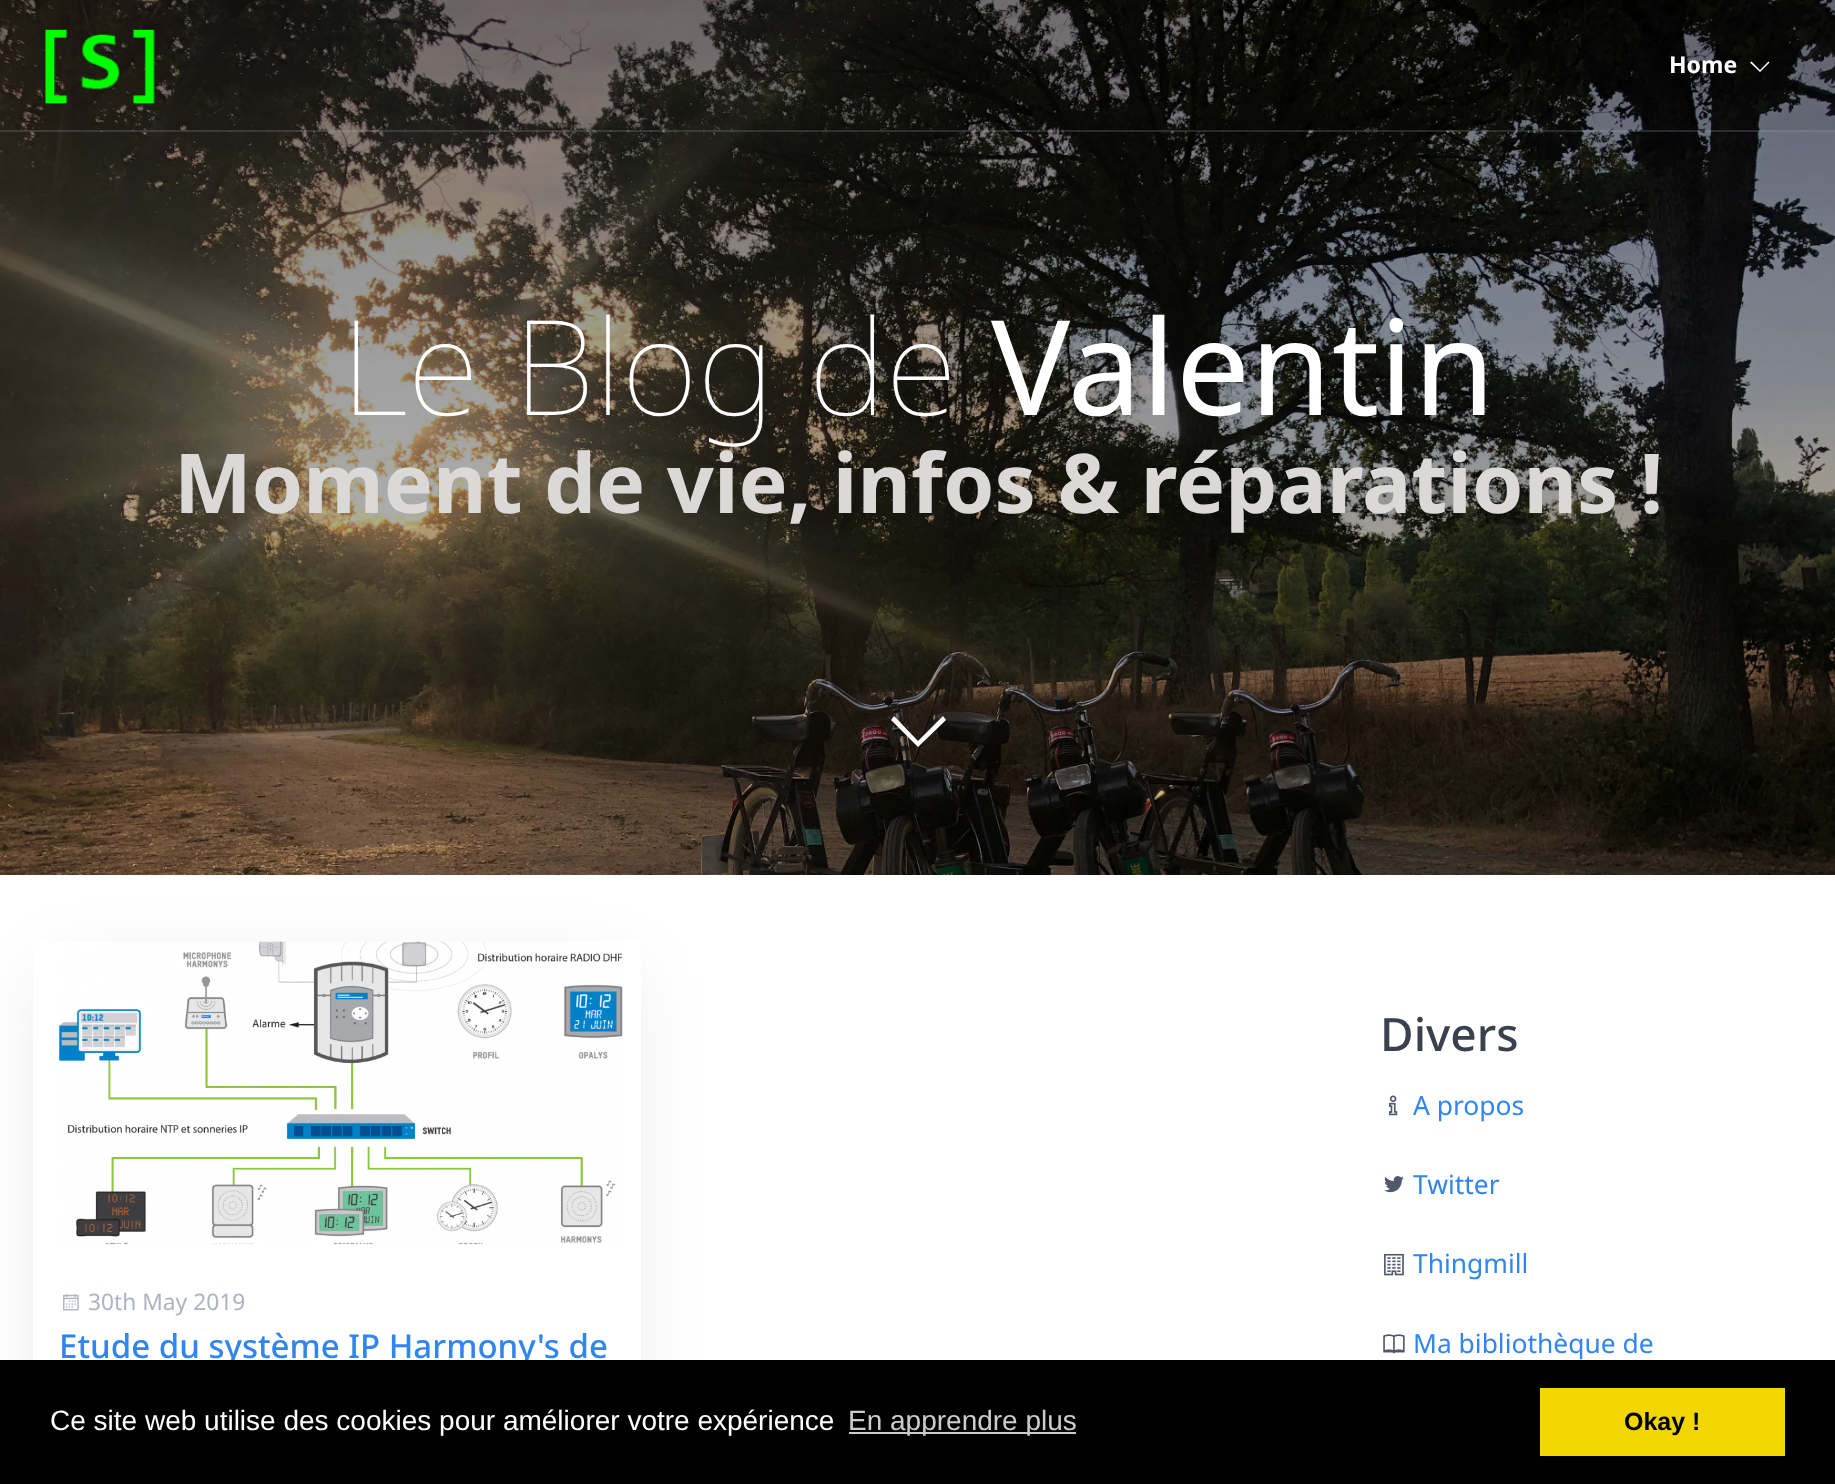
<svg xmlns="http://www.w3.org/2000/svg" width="1835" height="1484">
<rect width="100%" height="100%" fill="#fff"/>
<image x="0" y="0" width="1835" height="875" href="media/2.png"/>
<rect width="1835" height="131" fill="#0000000d"/>
<rect y="130" width="1835" height="2" fill="#acb3c233"/>
<image x="45" y="29" width="110" height="75" href="media/1.png"/>
<text x="1669" y="73" style="font-family:Noto Sans;font-size:23px;font-weight:bold;fill:#fff">Home</text>
<path d="M1751.5 61.5l8.5 8.5l8.5-8.5l1 1l-9.5 9.5l-10-9.5z" fill="#fff"/>
<text x="341" y="415" style="font-family:Noto Sans;font-size:132px;font-weight:100;fill:#fff">Le Blog de</text>
<text x="991" y="415" style="font-family:Noto Sans;font-size:132px;fill:#fff">Valentin</text>
<text x="174" y="513" style="font-family:Noto Sans;font-size:82.5px;font-weight:bold;fill:#dad9d7">Moment de vie, infos &amp; réparations !</text>
<path d="M894 716l24 25l25-25l3 4l-28 27l-27-27z" fill="#fff"/>
<rect x="49" y="975" width="576" height="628" fill="#0000001a" filter="blur(39.5px)"/>
<rect x="33" y="942" width="608" height="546" rx="4" fill="#fff"/>
<image x="59" y="941" width="564" height="304" href="media/3.png"/>
<image x="63" y="1294" width="16" height="17" href="media/4.png"/>
<text x="88" y="1310" style="font-family:Noto Sans;font-size:22.75px;fill:#acb3c2">30th May 2019</text>
<text x="59" y="1358" style="font-family:Noto Sans;font-size:33px;font-weight:500;fill:#3085ee">Etude du système IP Harmony's de</text>
<text x="1380" y="1051" style="font-family:Noto Sans;font-size:46px;font-weight:500;fill:#3a414e">Divers</text>
<image x="1389" y="1095" width="9" height="21" href="media/5.png"/>
<text x="1413" y="1115" style="font-family:Noto Sans;font-size:26.4px;fill:#3085ee">A propos</text>
<image x="1384" y="1176" width="20" height="17" href="media/6.png"/>
<text x="1413" y="1194" style="font-family:Noto Sans;font-size:26.4px;fill:#3085ee">Twitter</text>
<image x="1384" y="1253" width="20" height="23" href="media/7.png"/>
<text x="1413" y="1273" style="font-family:Noto Sans;font-size:26.4px;fill:#3085ee">Thingmill</text>
<image x="1383" y="1334" width="22" height="20" href="media/8.png"/>
<text x="1413" y="1353" style="font-family:Noto Sans;font-size:26.4px;fill:#3085ee">Ma bibliothèque de</text>
<rect y="1360" width="1835" height="124" fill="#000"/>
<text x="50" y="1430" style="font-family:Liberation Sans;font-size:28px;fill:#fff">Ce site web utilise des cookies pour améliorer votre expérience</text>
<rect x="849" y="1432" width="227" height="2" fill="#ccc"/>
<text x="848" y="1430" style="font-family:Liberation Sans;font-size:28px;fill:#ccc">En apprendre plus</text>
<rect x="1540" y="1388" width="245" height="68" fill="#f1d600"/>
<text x="1624" y="1430" style="font-family:Liberation Sans;font-size:25px;font-weight:bold;fill:#000">Okay !</text>
</svg>
